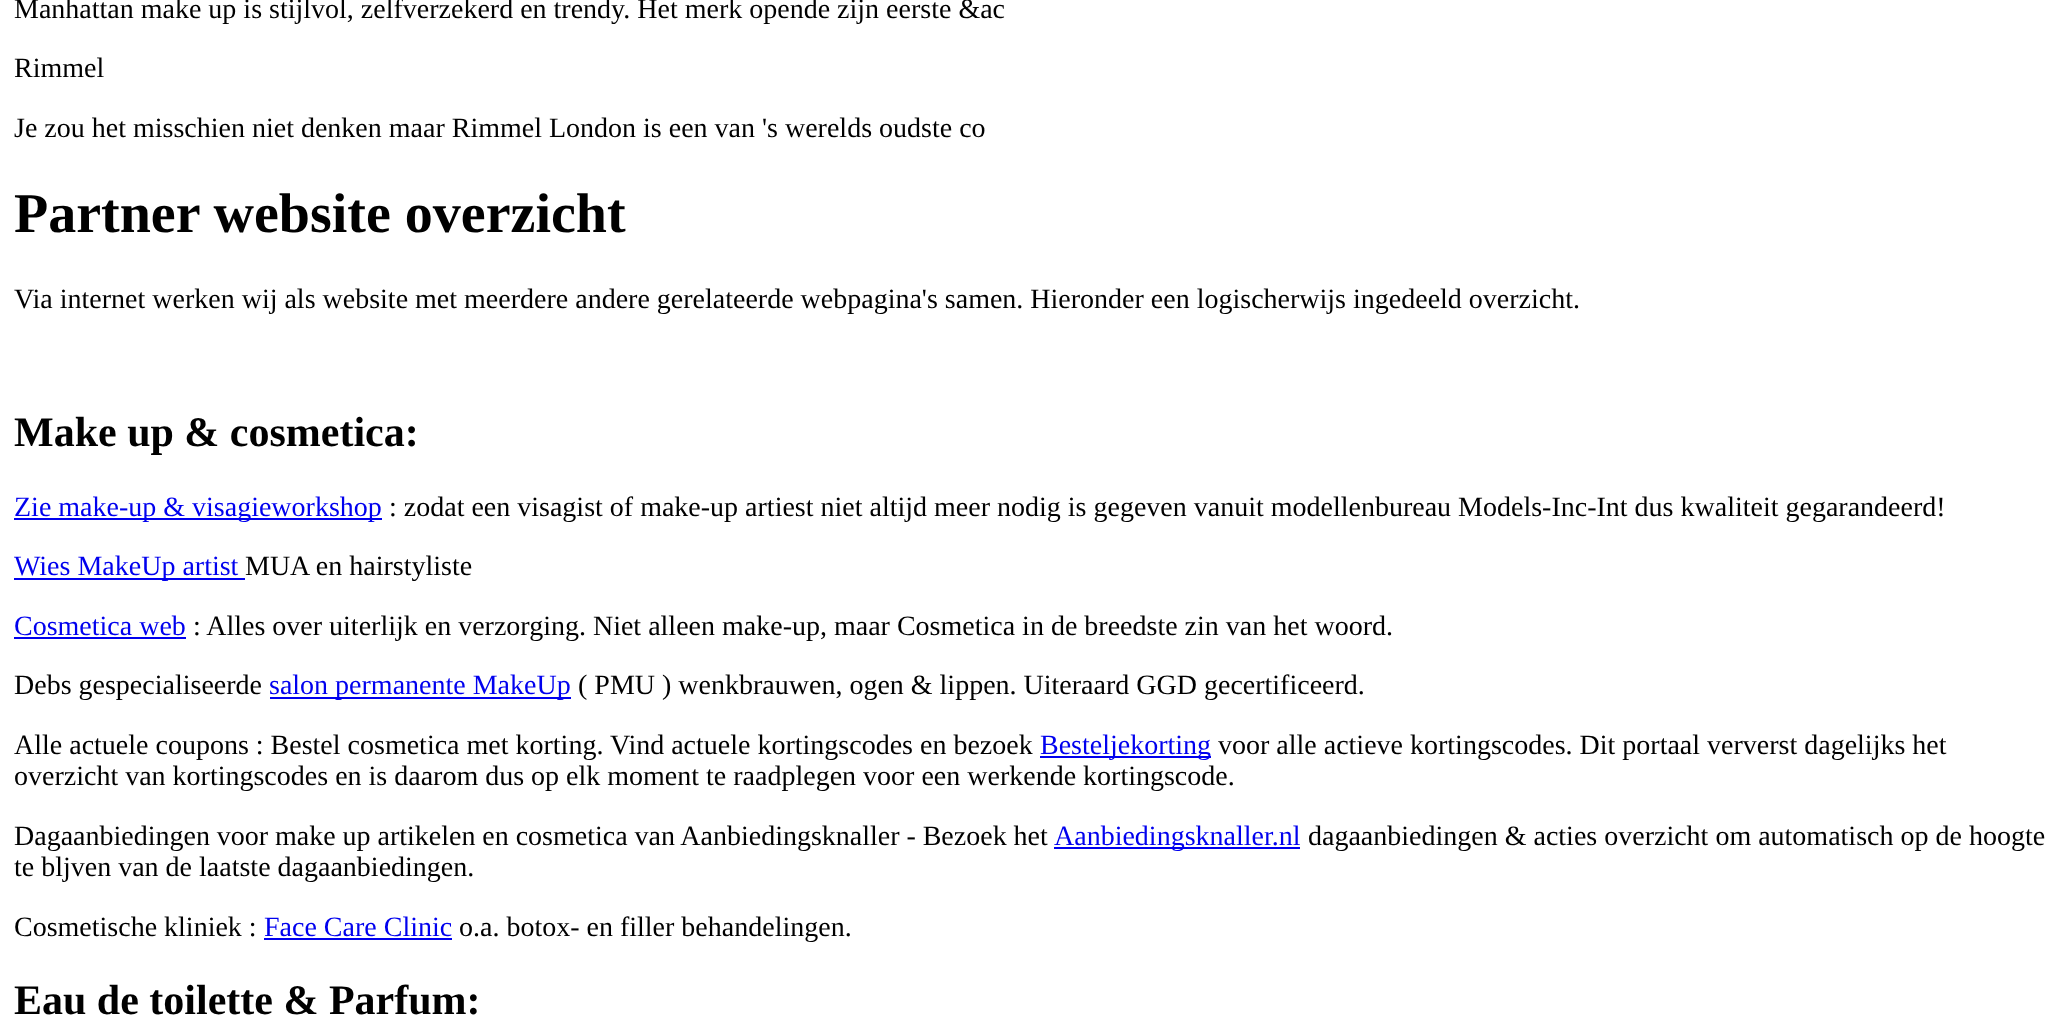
<svg xmlns="http://www.w3.org/2000/svg" width="2063" height="1017">
<rect width="100%" height="100%" fill="#fff"/>
<text x="14" y="18" style="font-family:Liberation Serif;font-size:28px;fill:#000">Manhattan make up is stijlvol, zelfverzekerd en trendy. Het merk opende zijn eerste &amp;ac</text>
<text x="14" y="77" style="font-family:Liberation Serif;font-size:28px;fill:#000">Rimmel</text>
<text x="14" y="137" style="font-family:Liberation Serif;font-size:28px;fill:#000">Je zou het misschien niet denken maar Rimmel London is een van 's werelds oudste co</text>
<text x="14" y="232" style="font-family:Liberation Serif;font-size:56px;font-weight:bold;fill:#000">Partner website overzicht</text>
<text x="14" y="308" style="font-family:Liberation Serif;font-size:28px;fill:#000">Via internet werken wij als website met meerdere andere gerelateerde webpagina's samen. Hieronder een logischerwijs ingedeeld overzicht.</text>
<text x="14" y="446" style="font-family:Liberation Serif;font-size:42px;font-weight:bold;fill:#000">Make up &amp; cosmetica:</text>
<rect x="14" y="518" width="368" height="2" fill="#00e"/>
<text x="14" y="516" style="font-family:Liberation Serif;font-size:28px;fill:#00e">Zie make-up &amp; visagieworkshop</text>
<text x="389" y="516" style="font-family:Liberation Serif;font-size:28px;fill:#000">: zodat een visagist of make-up artiest niet altijd meer nodig is gegeven vanuit modellenbureau Models-Inc-Int dus kwaliteit gegarandeerd!</text>
<rect x="14" y="578" width="231" height="2" fill="#00e"/>
<text x="14" y="575" style="font-family:Liberation Serif;font-size:28px;fill:#00e">Wies MakeUp artist</text>
<text x="245" y="575" style="font-family:Liberation Serif;font-size:28px;fill:#000">MUA en hairstyliste</text>
<text x="14" y="635" style="font-family:Liberation Serif;font-size:28px;fill:#00e">Cosmetica web</text>
<rect x="14" y="637" width="172" height="2" fill="#00e"/>
<text x="193" y="635" style="font-family:Liberation Serif;font-size:28px;fill:#000">: Alles over uiterlijk en verzorging. Niet alleen make-up, maar Cosmetica in de breedste zin van het woord.</text>
<text x="14" y="694" style="font-family:Liberation Serif;font-size:28px;fill:#000">Debs gespecialiseerde</text>
<rect x="270" y="697" width="301" height="2" fill="#00e"/>
<text x="269" y="694" style="font-family:Liberation Serif;font-size:28px;fill:#00e">salon permanente MakeUp</text>
<text x="578" y="694" style="font-family:Liberation Serif;font-size:28px;fill:#000">( PMU ) wenkbrauwen, ogen &amp; lippen. Uiteraard GGD gecertificeerd.</text>
<text x="14" y="754" style="font-family:Liberation Serif;font-size:28px;fill:#000">Alle actuele coupons : Bestel cosmetica met korting. Vind actuele kortingscodes en bezoek</text>
<rect x="1040" y="756" width="171" height="2" fill="#00e"/>
<text x="1040" y="754" style="font-family:Liberation Serif;font-size:28px;fill:#00e">Besteljekorting</text>
<text x="1218" y="754" style="font-family:Liberation Serif;font-size:28px;fill:#000">voor alle actieve kortingscodes. Dit portaal ververst dagelijks het</text>
<text x="14" y="785" style="font-family:Liberation Serif;font-size:28px;fill:#000">overzicht van kortingscodes en is daarom dus op elk moment te raadplegen voor een werkende kortingscode.</text>
<text x="14" y="845" word-spacing="-0.1" style="font-family:Liberation Serif;font-size:28px;fill:#000">Dagaanbiedingen voor make up artikelen en cosmetica van Aanbiedingsknaller - Bezoek het</text>
<rect x="1054" y="847" width="246" height="2" fill="#00e"/>
<text x="1054" y="845" style="font-family:Liberation Serif;font-size:28px;fill:#00e">Aanbiedingsknaller.nl</text>
<text x="1308" y="845" style="font-family:Liberation Serif;font-size:28px;fill:#000">dagaanbiedingen &amp; acties overzicht om automatisch op de hoogte</text>
<text x="14" y="876" style="font-family:Liberation Serif;font-size:28px;fill:#000">te bljven van de laatste dagaanbiedingen.</text>
<text x="14" y="936" style="font-family:Liberation Serif;font-size:28px;fill:#000">Cosmetische kliniek :</text>
<text x="264" y="936" style="font-family:Liberation Serif;font-size:28px;fill:#00e">Face Care Clinic</text>
<rect x="264" y="938" width="188" height="2" fill="#00e"/>
<text x="459" y="936" style="font-family:Liberation Serif;font-size:28px;fill:#000">o.a. botox- en filler behandelingen.</text>
<text x="14" y="1014" style="font-family:Liberation Serif;font-size:42px;font-weight:bold;fill:#000">Eau de toilette &amp; Parfum:</text>
</svg>
